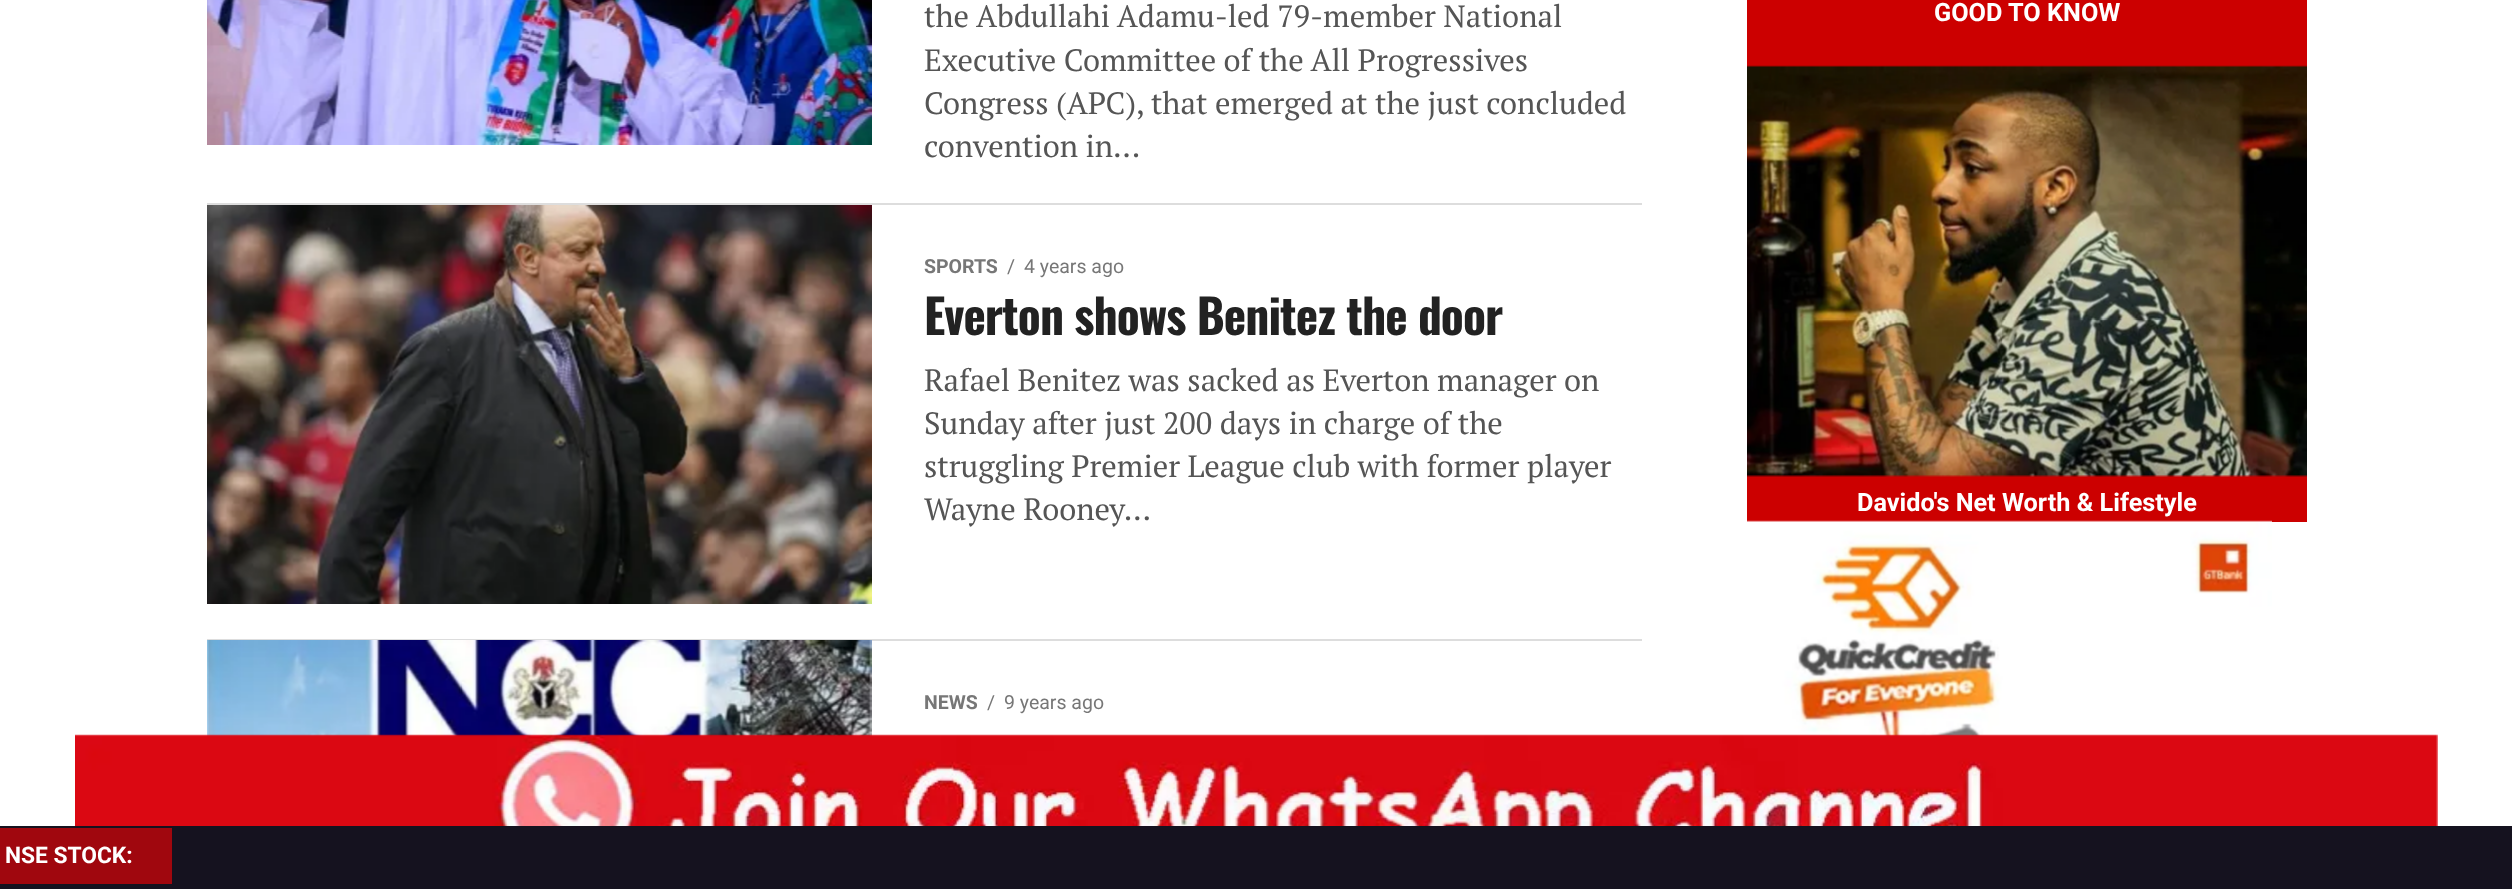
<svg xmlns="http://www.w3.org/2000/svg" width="2512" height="889">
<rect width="100%" height="100%" fill="#fff"/>
<image x="207" y="0" width="665" height="145" href="media/1.png"/>
<text x="924" y="27" style="font-family:PT Serif;font-size:30.8px;fill:#555">the Abdullahi Adamu-led 79-member National</text>
<text x="924" y="71" style="font-family:PT Serif;font-size:30.8px;fill:#555">Executive Committee of the All Progressives</text>
<text x="924" y="114" style="font-family:PT Serif;font-size:30.8px;fill:#555">Congress (APC), that emerged at the just concluded</text>
<text x="924" y="157" style="font-family:PT Serif;font-size:30.8px;fill:#555">convention in...</text>
<rect x="207" y="203" width="1435" height="2" fill="#ddd"/>
<image x="207" y="205" width="665" height="399" href="media/2.png"/>
<text x="924" y="273" style="font-family:Roboto;font-size:19.5px;font-weight:bold;fill:#777">SPORTS</text>
<text x="1007" y="273" style="font-family:Roboto;font-size:19.5px;fill:#777">/</text>
<text x="1024" y="273" style="font-family:Roboto;font-size:19.5px;fill:#777">4 years ago</text>
<text x="924" y="335" style="font-family:Oswald;font-size:47.6px;font-weight:bold;letter-spacing:-0.95px;fill:#222">Everton shows Benitez the door</text>
<text x="924" y="391" style="font-family:PT Serif;font-size:30.8px;fill:#555">Rafael Benitez was sacked as Everton manager on</text>
<text x="924" y="434" style="font-family:PT Serif;font-size:30.8px;fill:#555">Sunday after just 200 days in charge of the</text>
<text x="924" y="477" style="font-family:PT Serif;font-size:30.8px;fill:#555">struggling Premier League club with former player</text>
<text x="924" y="520" style="font-family:PT Serif;font-size:30.8px;fill:#555">Wayne Rooney...</text>
<rect x="207" y="639" width="1435" height="2" fill="#ddd"/>
<image x="207" y="640" width="665" height="97" href="media/3.png"/>
<text x="924" y="709" style="font-family:Roboto;font-size:19.5px;font-weight:bold;fill:#777">NEWS</text>
<text x="987" y="709" style="font-family:Roboto;font-size:19.5px;fill:#777">/</text>
<text x="1004" y="709" style="font-family:Roboto;font-size:19.5px;fill:#777">9 years ago</text>
<rect x="1747" width="560" height="522" fill="#c00"/>
<text x="1934" y="21" style="font-family:Roboto;font-size:25.25px;font-weight:bold;fill:#fff">GOOD TO KNOW</text>
<image x="1747" y="65" width="560" height="412" href="media/4.png"/>
<text x="1857" y="511" style="font-family:Roboto;font-size:25.25px;font-weight:bold;fill:#fff">Davido's Net Worth &amp; Lifestyle</text>
<image x="1747" y="520" width="525" height="217" href="media/5.png"/>
<image x="75" y="734" width="2363" height="92" href="media/6.png"/>
<rect y="826" width="2512" height="63" fill="#15121f"/>
<rect y="828" width="172" height="56" fill="#a0070e"/>
<text x="5" y="863" style="font-family:Roboto;font-size:22.75px;font-weight:bold;fill:#fff">NSE STOCK:</text>
</svg>
